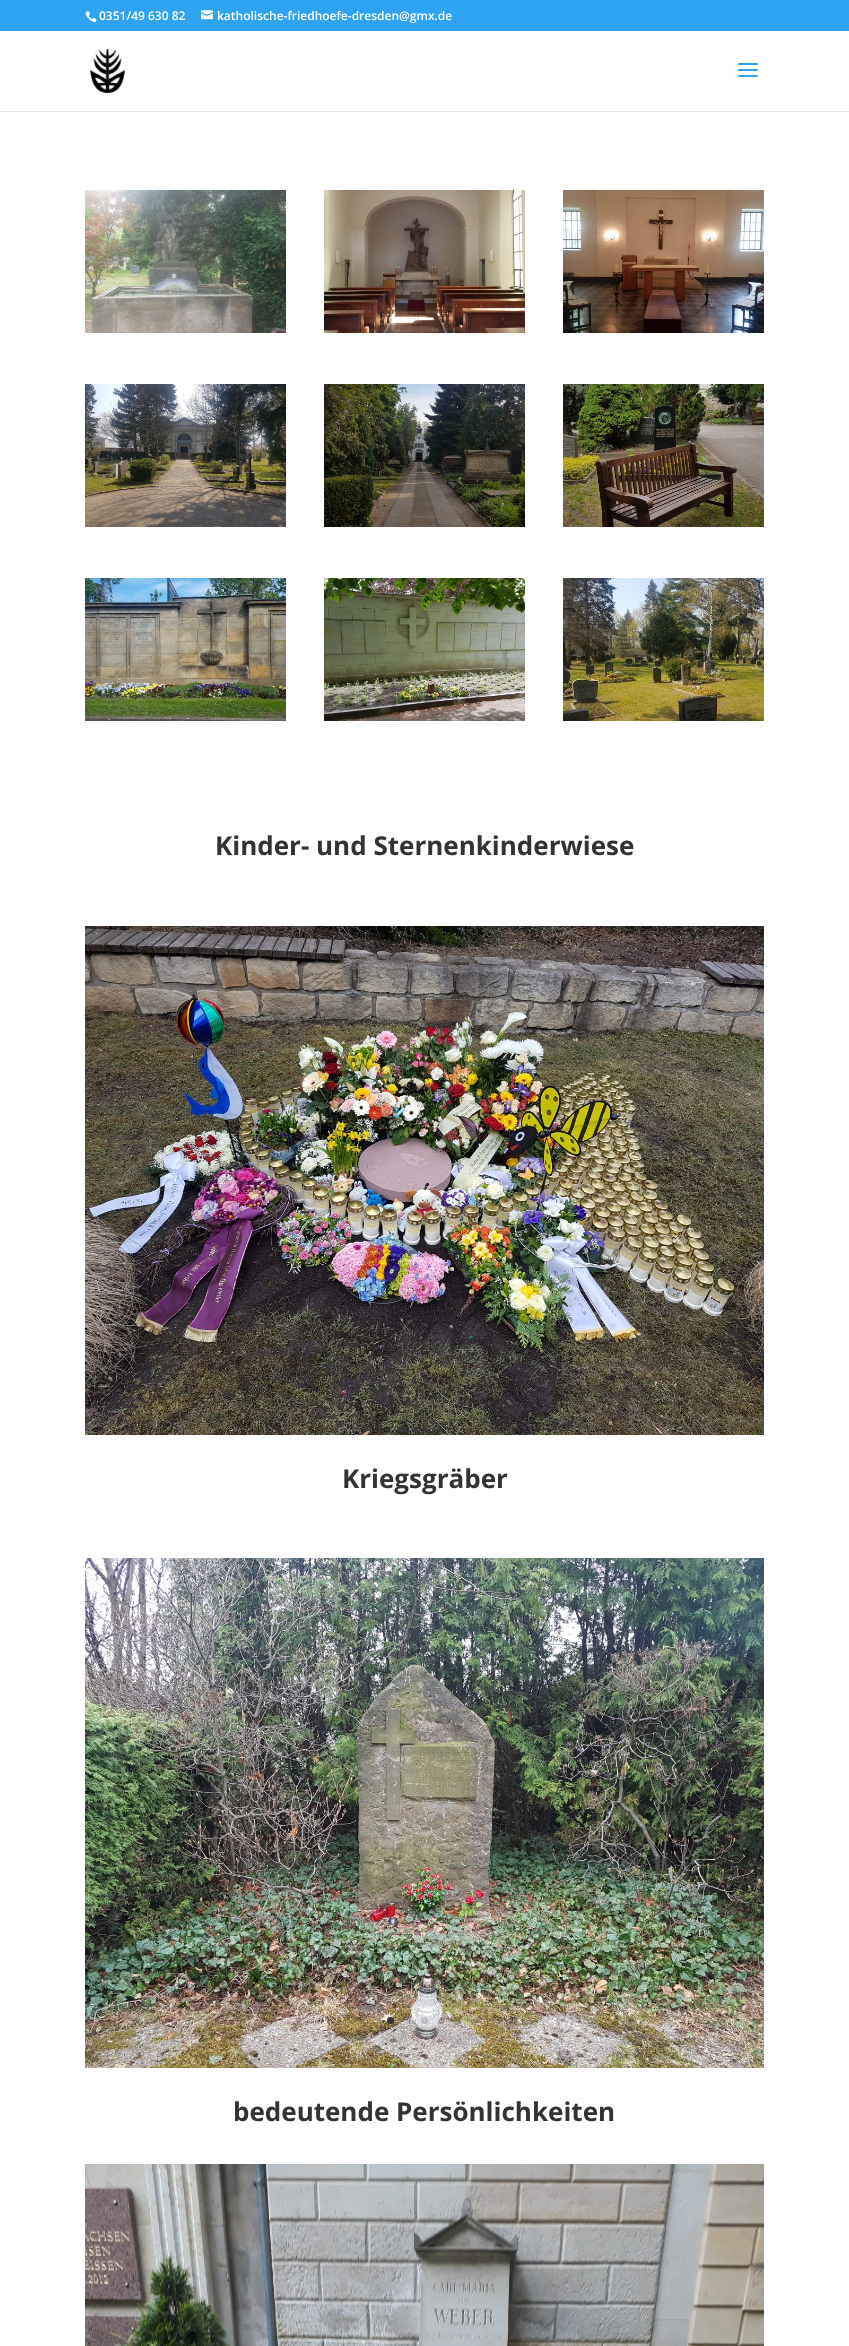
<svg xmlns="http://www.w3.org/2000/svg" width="849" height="2346">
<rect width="100%" height="100%" fill="#fff"/>
<rect width="849" height="31" fill="#2ea3f2"/>
<image x="85" y="11" width="12" height="12" href="media/1.png"/>
<text x="99" y="20" style="font-family:Open Sans;font-size:12px;font-weight:600;fill:#fff">0351/49 630 82</text>
<image x="201" y="10" width="12" height="10" href="media/2.png"/>
<text x="217" y="20" style="font-family:Open Sans;font-size:12px;font-weight:600;fill:#fff">katholische-friedhoefe-dresden@gmx.de</text>
<rect y="111" width="849" height="1" fill="#e6e6e6"/>
<image x="90" y="49" width="35" height="44" href="media/3.png"/>
<image x="738" y="63" width="20" height="14" href="media/4.png"/>
<image x="85" y="190" width="201" height="143" href="media/5.png"/>
<image x="324" y="190" width="201" height="143" href="media/6.png"/>
<image x="563" y="190" width="201" height="143" href="media/7.png"/>
<image x="85" y="384" width="201" height="143" href="media/8.png"/>
<image x="324" y="384" width="201" height="143" href="media/9.png"/>
<image x="563" y="384" width="201" height="143" href="media/10.png"/>
<image x="85" y="578" width="201" height="143" href="media/11.png"/>
<image x="324" y="578" width="201" height="143" href="media/12.png"/>
<image x="563" y="578" width="201" height="143" href="media/13.png"/>
<text x="215" y="855" style="font-family:Open Sans;font-size:26px;font-weight:bold;fill:#333">Kinder- und Sternenkinderwiese</text>
<image x="85" y="926" width="679" height="509" href="media/14.png"/>
<circle cx="382.5" cy="1388.5" r="3.5" fill="#333"/>
<circle cx="399.5" cy="1388.5" r="3.5" fill="#00000026"/>
<circle cx="416.5" cy="1388.5" r="3.5" fill="#00000026"/>
<circle cx="433.5" cy="1388.5" r="3.5" fill="#00000026"/>
<circle cx="450.5" cy="1388.5" r="3.5" fill="#00000026"/>
<circle cx="467.5" cy="1388.5" r="3.5" fill="#00000026"/>
<text x="342" y="1488" style="font-family:Open Sans;font-size:26px;font-weight:bold;fill:#333">Kriegsgräber</text>
<image x="85" y="1558" width="679" height="510" href="media/15.png"/>
<circle cx="390.5" cy="2020.5" r="3.5" fill="#333"/>
<circle cx="407.5" cy="2020.5" r="3.5" fill="#00000026"/>
<circle cx="424.5" cy="2020.5" r="3.5" fill="#00000026"/>
<circle cx="441.5" cy="2020.5" r="3.5" fill="#00000026"/>
<circle cx="458.5" cy="2020.5" r="3.5" fill="#00000026"/>
<text x="233" y="2121" style="font-family:Open Sans;font-size:26px;font-weight:bold;fill:#333">bedeutende Persönlichkeiten</text>
<image x="85" y="2164" width="679" height="182" href="media/16.png"/>
</svg>
